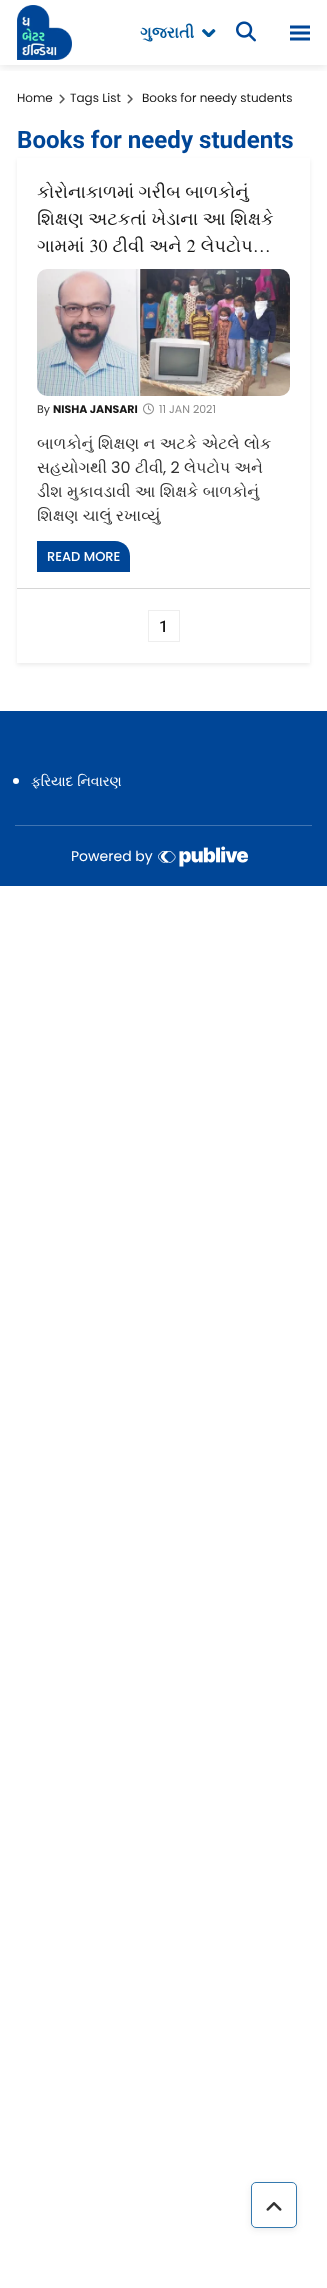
<svg xmlns="http://www.w3.org/2000/svg" width="327" height="2288">
<defs>
<clipPath id="clip1"><rect x="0" y="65" width="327" height="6"/></clipPath>
<clipPath id="clip2"><path d="M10 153h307v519h-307zm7 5h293v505h-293z" clip-rule="evenodd"/></clipPath>
<clipPath id="clip3"><rect x="37" y="178" width="253" height="81"/></clipPath>
<clipPath id="clip4"><rect x="37" y="432" width="243" height="96"/></clipPath>
</defs>
<rect width="100%" height="100%" fill="#fff"/>
<g clip-path="url(#clip1)">
<rect y="2" width="327" height="65" fill="#0000001a" filter="blur(5px)"/>
</g>
<image x="17" y="5" width="55" height="55" href="media/1.png"/>
<text x="140" y="38" style="font-family:FreeSerif;font-size:16px;font-weight:bold;fill:#01579b">ગુજરાતી</text>
<image x="202" y="29" width="14" height="8" href="media/2.png"/>
<image x="236" y="21" width="20" height="21" href="media/3.png"/>
<path d="M290 39h20m-20-6h20m-20-6h20" fill="none" stroke="#004697" stroke-width="3"/>
<text x="17" y="102" style="font-family:Poppins;font-size:12px;fill:#181818">Home</text>
<image x="59" y="94" width="6" height="10" href="media/4.png"/>
<text x="70" y="102" style="font-family:Poppins;font-size:12px;fill:#181818">Tags List</text>
<image x="127" y="94" width="6" height="10" href="media/4.png"/>
<text x="142" y="102" style="font-family:Poppins;font-size:12px;fill:#181818">Books for needy students</text>
<g clip-path="url(#clip2)">
<rect x="17" y="160" width="293" height="505" fill="#00000014" filter="blur(2px)"/>
</g>
<text x="17" y="148" style="font-family:Roboto;font-size:24.1px;font-weight:bold;fill:#004697">Books for needy students</text>
<rect x="17" y="588" width="293" height="1" fill="#d6d6d6"/>
<g clip-path="url(#clip3)">
<text x="37" y="198" style="font-family:FreeSerif;font-size:18px;fill:#181818">કોરોનાકાળમાં ગરીબ બાળકોનું</text>
</g>
<text x="37" y="225" style="font-family:FreeSerif;font-size:18px;fill:#181818">શિક્ષણ અટકતાં ખેડાના આ શિક્ષકે</text>
<text x="37" y="252" word-spacing="0.5" style="font-family:FreeSerif;font-size:18px;fill:#181818">ગામમાં 30 ટીવી અને 2 લેપટોપ…</text>
<image x="37" y="269" width="253" height="127" href="media/5.png"/>
<text x="37" y="413" style="font-family:Poppins;font-size:11px;fill:#333">By</text>
<text x="53" y="413" style="font-family:Poppins;font-size:11px;font-weight:bold;fill:#181818">NISHA JANSARI</text>
<image x="143" y="403" width="11" height="12" href="media/6.png"/>
<text x="159" y="413" style="font-family:Poppins;font-size:11px;fill:#8b8b8b">11 JAN 2021</text>
<text x="37" y="449" word-spacing="0.25" style="font-family:FreeSerif;font-size:16px;fill:#333">બાળકોનું શિક્ષણ ન અટકે એટલે લોક</text>
<text x="37" y="473" style="font-family:FreeSerif;font-size:16px;fill:#333">સહયોગથી</text>
<text x="111" y="473" style="font-family:Poppins;font-size:16px;fill:#333">30</text>
<text x="135" y="473" style="font-family:FreeSerif;font-size:16px;fill:#333">ટીવી</text>
<text x="163" y="473" style="font-family:Poppins;font-size:16px;fill:#333">, 2</text>
<text x="184" y="473" style="font-family:FreeSerif;font-size:16px;fill:#333">લેપટોપ અને</text>
<g clip-path="url(#clip4)">
<text x="37" y="497" word-spacing="0.25" style="font-family:FreeSerif;font-size:16px;fill:#333">ડીશ મુકાવડાવી આ શિક્ષકે બાળકોનું</text>
</g>
<text x="37" y="521" word-spacing="0.25" style="font-family:FreeSerif;font-size:16px;fill:#333">શિક્ષણ ચાલું રખાવ્યું</text>
<path d="M37 541h78c8.5 0 15 6.5 15 15v16h-93z" fill="#004697"/>
<text x="47" y="561" style="font-family:Poppins;font-size:13px;font-weight:500;fill:#fff">READ MORE</text>
<rect x="148.5" y="610.5" width="31" height="31" fill="none" stroke="#eee"/>
<text x="159" y="632" style="font-family:Roboto;font-size:16px;font-weight:500;fill:#181818">1</text>
<rect y="711" width="327" height="175" fill="#004697"/>
<circle cx="16" cy="781" r="3" fill="#fff"/>
<text x="31" y="786" word-spacing="1" style="font-family:FreeSerif;font-size:14px;letter-spacing:-0.25px;fill:#fff">ફરિયાદ નિવારણ</text>
<rect x="15" y="825" width="297" height="1" fill="#4074b1"/>
<text x="71" y="861" style="font-family:Poppins;font-size:14px;fill:#fff">Powered by</text>
<image x="158" y="846" width="90" height="21" href="media/7.png"/>
<rect x="251" y="2184" width="46" height="46" rx="5" fill="#3333331a" filter="blur(3px)"/>
<rect x="251.5" y="2182.5" width="45" height="45" rx="4.5" fill="#fff" stroke="#3479af"/>
<image x="266" y="2202" width="16" height="9" href="media/8.png"/>
</svg>
